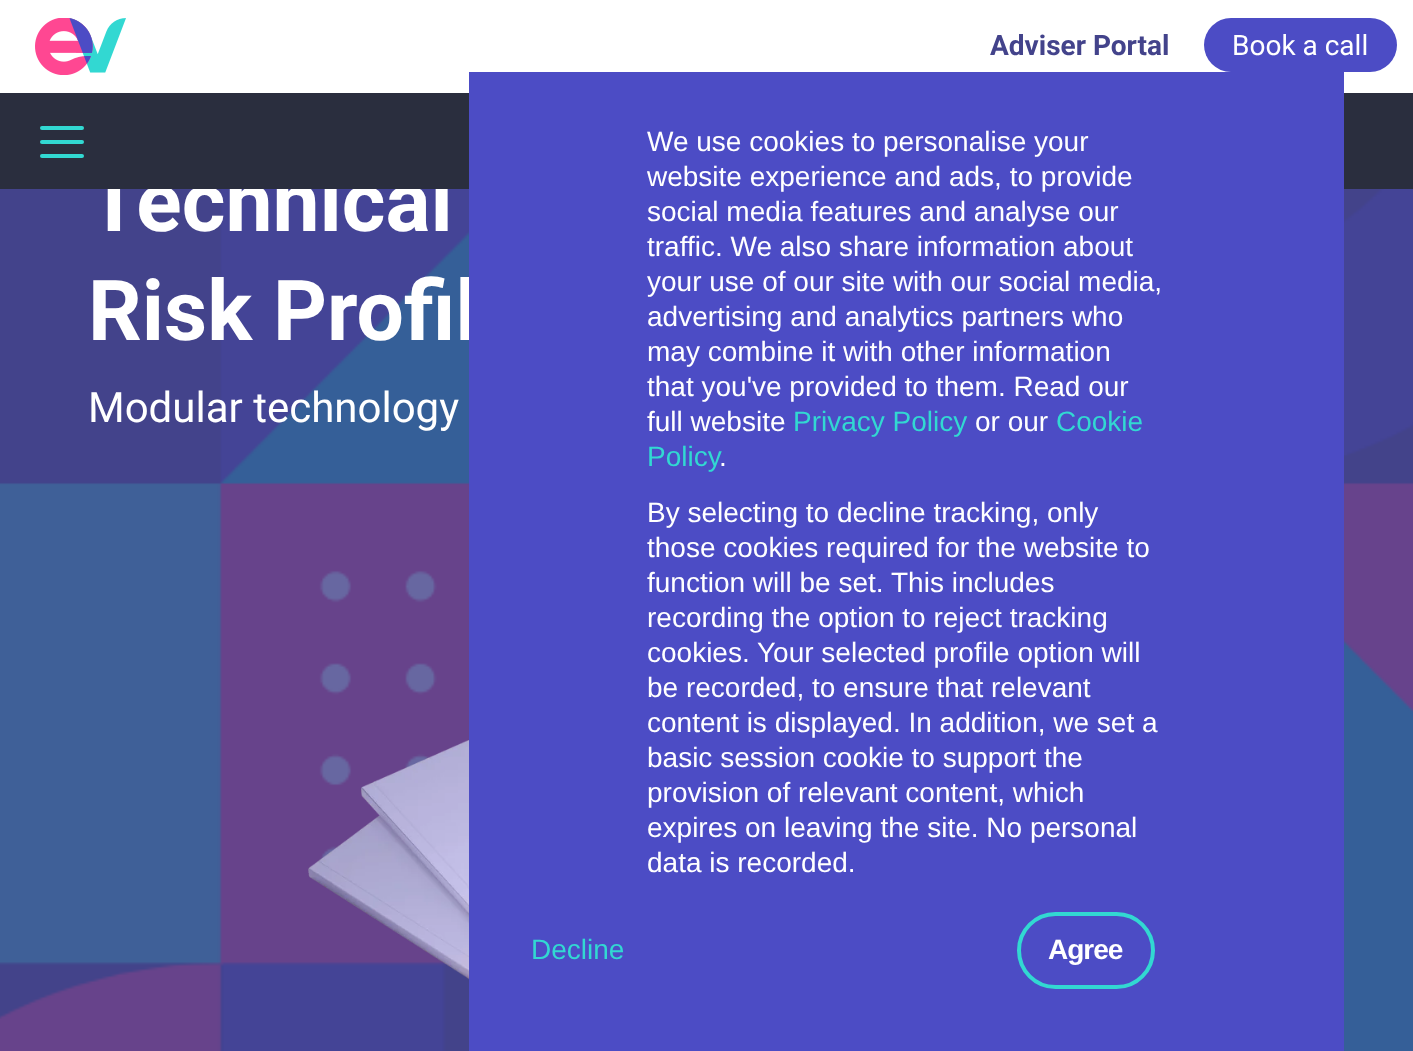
<svg xmlns="http://www.w3.org/2000/svg" width="1413" height="1051">
<rect width="100%" height="100%" fill="#fff"/>
<image x="35" y="18" width="91" height="57" href="media/1.png"/>
<text x="990" y="55" style="font-family:Roboto;font-size:28px;font-weight:bold;fill:#43438b">Adviser Portal</text>
<rect x="1204" y="18" width="193" height="54" rx="27" fill="#4c4cc5"/>
<text x="1232" y="55" style="font-family:Roboto;font-size:28px;fill:#fff">Book a call</text>
<image x="0" y="189" width="1413" height="862" href="media/2.png"/>
<text x="88" y="231" style="font-family:Roboto;font-size:84px;font-weight:bold;fill:#fff">Technical</text>
<rect y="93" width="1413" height="96" fill="#2a2e3e"/>
<rect x="40" y="140" width="44" height="4" rx="2" fill="#32d8d2"/>
<rect x="40" y="126" width="44" height="4" rx="2" fill="#32d8d2"/>
<rect x="40" y="154" width="44" height="4" rx="2" fill="#32d8d2"/>
<text x="88" y="340" style="font-family:Roboto;font-size:84px;font-weight:bold;fill:#fff">Risk Profil</text>
<text x="88" y="422" style="font-family:Roboto;font-size:42px;fill:#fff">Modular technology</text>
<image x="308" y="740" width="161" height="240" href="media/3.png"/>
<rect x="469" y="72" width="875" height="979" fill="#4c4cc5"/>
<text x="647" y="151" style="font-family:Liberation Sans;font-size:28px;fill:#fff">We use cookies to personalise your</text>
<text x="647" y="186" style="font-family:Liberation Sans;font-size:28px;fill:#fff">website experience and ads, to provide</text>
<text x="647" y="221" style="font-family:Liberation Sans;font-size:28px;fill:#fff">social media features and analyse our</text>
<text x="647" y="256" style="font-family:Liberation Sans;font-size:28px;fill:#fff">traffic. We also share information about</text>
<text x="647" y="291" style="font-family:Liberation Sans;font-size:28px;fill:#fff">your use of our site with our social media,</text>
<text x="647" y="326" style="font-family:Liberation Sans;font-size:28px;fill:#fff">advertising and analytics partners who</text>
<text x="647" y="361" style="font-family:Liberation Sans;font-size:28px;fill:#fff">may combine it with other information</text>
<text x="647" y="396" style="font-family:Liberation Sans;font-size:28px;fill:#fff">that you've provided to them. Read our</text>
<text x="647" y="431" style="font-family:Liberation Sans;font-size:28px;fill:#fff">full website</text>
<text x="793" y="431" style="font-family:Liberation Sans;font-size:28px;fill:#32d8d2">Privacy Policy</text>
<text x="975" y="431" style="font-family:Liberation Sans;font-size:28px;fill:#fff">or our</text>
<text x="1056" y="431" style="font-family:Liberation Sans;font-size:28px;fill:#32d8d2">Cookie</text>
<text x="647" y="466" style="font-family:Liberation Sans;font-size:28px;fill:#32d8d2">Policy</text>
<text x="719" y="466" style="font-family:Liberation Sans;font-size:28px;fill:#fff">.</text>
<text x="647" y="522" style="font-family:Liberation Sans;font-size:28px;fill:#fff">By selecting to decline tracking, only</text>
<text x="647" y="557" style="font-family:Liberation Sans;font-size:28px;fill:#fff">those cookies required for the website to</text>
<text x="647" y="592" style="font-family:Liberation Sans;font-size:28px;fill:#fff">function will be set.</text>
<text x="891" y="592" style="font-family:Liberation Sans;font-size:28px;fill:#fff">This includes</text>
<text x="647" y="627" style="font-family:Liberation Sans;font-size:28px;fill:#fff">recording the option to reject tracking</text>
<text x="647" y="662" style="font-family:Liberation Sans;font-size:28px;fill:#fff">cookies. Your selected profile option will</text>
<text x="647" y="697" style="font-family:Liberation Sans;font-size:28px;fill:#fff">be recorded, to ensure that relevant</text>
<text x="647" y="732" style="font-family:Liberation Sans;font-size:28px;fill:#fff">content is displayed. In addition, we set a</text>
<text x="647" y="767" style="font-family:Liberation Sans;font-size:28px;fill:#fff">basic session cookie to support the</text>
<text x="647" y="802" style="font-family:Liberation Sans;font-size:28px;fill:#fff">provision of relevant content, which</text>
<text x="647" y="837" style="font-family:Liberation Sans;font-size:28px;fill:#fff">expires on leaving the site. No personal</text>
<text x="647" y="872" style="font-family:Liberation Sans;font-size:28px;fill:#fff">data is recorded.</text>
<text x="531" y="959" style="font-family:Liberation Sans;font-size:28px;fill:#32d8d2">Decline</text>
<rect x="1019" y="914" width="134" height="73" rx="36.5" fill="none" stroke="#32d8d2" stroke-width="4"/>
<text x="1048" y="959" style="font-family:Liberation Sans;font-size:28px;font-weight:bold;letter-spacing:-1px;fill:#fff">Agree</text>
</svg>
